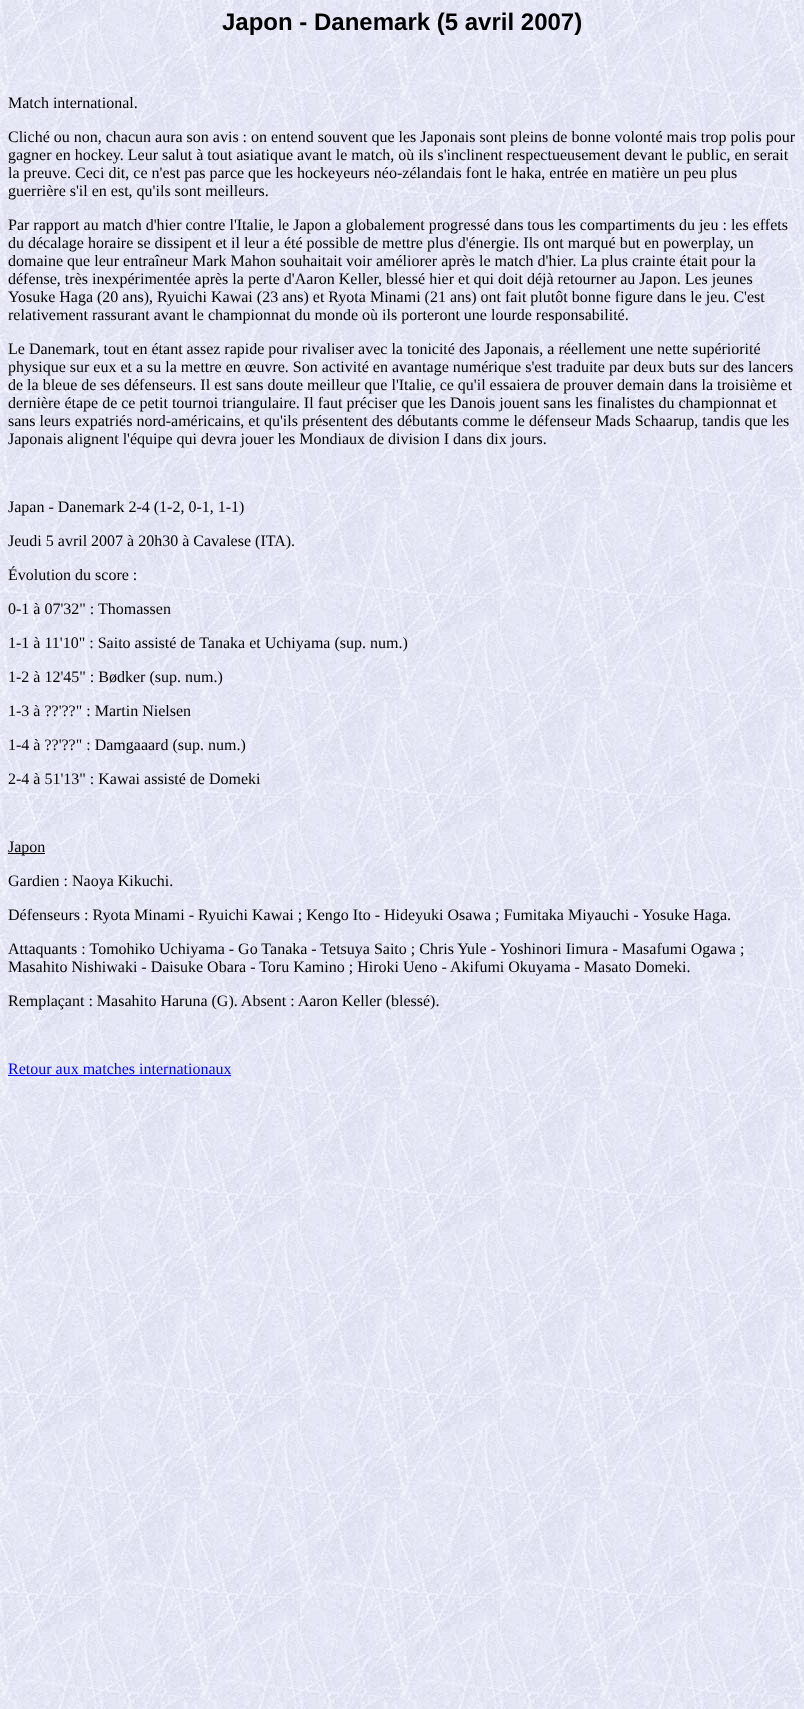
<svg xmlns="http://www.w3.org/2000/svg" width="804" height="1709">
<rect width="100%" height="100%" fill="#fff"/>
<image x="0" y="0" width="804" height="1709" href="media/1.png"/>
<text x="222" y="30" style="font-family:Liberation Sans;font-size:24px;font-weight:bold;fill:#000">Japon - Danemark (5 avril 2007)</text>
<text x="8" y="108" style="font-family:Liberation Serif;font-size:16px;fill:#000">Match international.</text>
<text x="8" y="142" style="font-family:Liberation Serif;font-size:16px;fill:#000">Cliché ou non, chacun aura son avis : on entend souvent que les Japonais sont pleins de bonne volonté mais trop polis pour</text>
<text x="8" y="160" style="font-family:Liberation Serif;font-size:16px;fill:#000">gagner en hockey. Leur salut à tout asiatique avant le match, où ils s'inclinent respectueusement devant le public, en serait</text>
<text x="8" y="178" style="font-family:Liberation Serif;font-size:16px;fill:#000">la preuve. Ceci dit, ce n'est pas parce que les hockeyeurs néo-zélandais font le haka, entrée en matière un peu plus</text>
<text x="8" y="196" style="font-family:Liberation Serif;font-size:16px;fill:#000">guerrière s'il en est, qu'ils sont meilleurs.</text>
<text x="8" y="230" style="font-family:Liberation Serif;font-size:16px;fill:#000">Par rapport au match d'hier contre l'Italie, le Japon a globalement progressé dans tous les compartiments du jeu : les effets</text>
<text x="8" y="248" style="font-family:Liberation Serif;font-size:16px;fill:#000">du décalage horaire se dissipent et il leur a été possible de mettre plus d'énergie. Ils ont marqué but en powerplay, un</text>
<text x="8" y="266" style="font-family:Liberation Serif;font-size:16px;fill:#000">domaine que leur entraîneur Mark Mahon souhaitait voir améliorer après le match d'hier. La plus crainte était pour la</text>
<text x="8" y="284" style="font-family:Liberation Serif;font-size:16px;fill:#000">défense, très inexpérimentée après la perte d'Aaron Keller, blessé hier et qui doit déjà retourner au Japon. Les jeunes</text>
<text x="8" y="302" style="font-family:Liberation Serif;font-size:16px;fill:#000">Yosuke Haga (20 ans), Ryuichi Kawai (23 ans) et Ryota Minami (21 ans) ont fait plutôt bonne figure dans le jeu. C'est</text>
<text x="8" y="320" style="font-family:Liberation Serif;font-size:16px;fill:#000">relativement rassurant avant le championnat du monde où ils porteront une lourde responsabilité.</text>
<text x="8" y="354" style="font-family:Liberation Serif;font-size:16px;fill:#000">Le Danemark, tout en étant assez rapide pour rivaliser avec la tonicité des Japonais, a réellement une nette supériorité</text>
<text x="8" y="372" style="font-family:Liberation Serif;font-size:16px;fill:#000">physique sur eux et a su la mettre en œuvre. Son activité en avantage numérique s'est traduite par deux buts sur des lancers</text>
<text x="8" y="390" style="font-family:Liberation Serif;font-size:16px;fill:#000">de la bleue de ses défenseurs. Il est sans doute meilleur que l'Italie, ce qu'il essaiera de prouver demain dans la troisième et</text>
<text x="8" y="408" style="font-family:Liberation Serif;font-size:16px;fill:#000">dernière étape de ce petit tournoi triangulaire. Il faut préciser que les Danois jouent sans les finalistes du championnat et</text>
<text x="8" y="426" style="font-family:Liberation Serif;font-size:16px;fill:#000">sans leurs expatriés nord-américains, et qu'ils présentent des débutants comme le défenseur Mads Schaarup, tandis que les</text>
<text x="8" y="444" style="font-family:Liberation Serif;font-size:16px;fill:#000">Japonais alignent l'équipe qui devra jouer les Mondiaux de division I dans dix jours.</text>
<text x="8" y="512" style="font-family:Liberation Serif;font-size:16px;fill:#000">Japan - Danemark 2-4 (1-2, 0-1, 1-1)</text>
<text x="8" y="546" style="font-family:Liberation Serif;font-size:16px;fill:#000">Jeudi 5 avril 2007 à 20h30 à Cavalese (ITA).</text>
<text x="8" y="580" style="font-family:Liberation Serif;font-size:16px;fill:#000">Évolution du score :</text>
<text x="8" y="614" style="font-family:Liberation Serif;font-size:16px;fill:#000">0-1 à 07'32" : Thomassen</text>
<text x="8" y="648" style="font-family:Liberation Serif;font-size:16px;fill:#000">1-1 à 11'10" : Saito assisté de Tanaka et Uchiyama (sup. num.)</text>
<text x="8" y="682" style="font-family:Liberation Serif;font-size:16px;fill:#000">1-2 à 12'45" : Bødker (sup. num.)</text>
<text x="8" y="716" style="font-family:Liberation Serif;font-size:16px;fill:#000">1-3 à ??'??" : Martin Nielsen</text>
<text x="8" y="750" style="font-family:Liberation Serif;font-size:16px;fill:#000">1-4 à ??'??" : Damgaaard (sup. num.)</text>
<text x="8" y="784" style="font-family:Liberation Serif;font-size:16px;fill:#000">2-4 à 51'13" : Kawai assisté de Domeki</text>
<rect x="8" y="853" width="37" height="1" fill="#000"/>
<text x="8" y="852" style="font-family:Liberation Serif;font-size:16px;fill:#000">Japon</text>
<text x="8" y="886" style="font-family:Liberation Serif;font-size:16px;fill:#000">Gardien : Naoya Kikuchi.</text>
<text x="8" y="920" style="font-family:Liberation Serif;font-size:16px;fill:#000">Défenseurs : Ryota Minami - Ryuichi Kawai ; Kengo Ito - Hideyuki Osawa ; Fumitaka Miyauchi - Yosuke Haga.</text>
<text x="8" y="954" style="font-family:Liberation Serif;font-size:16px;fill:#000">Attaquants : Tomohiko Uchiyama - Go Tanaka - Tetsuya Saito ; Chris Yule - Yoshinori Iimura - Masafumi Ogawa ;</text>
<text x="8" y="972" style="font-family:Liberation Serif;font-size:16px;fill:#000">Masahito Nishiwaki - Daisuke Obara - Toru Kamino ; Hiroki Ueno - Akifumi Okuyama - Masato Domeki.</text>
<text x="8" y="1006" style="font-family:Liberation Serif;font-size:16px;fill:#000">Remplaçant : Masahito Haruna (G). Absent : Aaron Keller (blessé).</text>
<text x="8" y="1074" style="font-family:Liberation Serif;font-size:16px;fill:#00f">Retour aux matches internationaux</text>
<rect x="8" y="1075" width="223" height="1" fill="#00f"/>
</svg>
